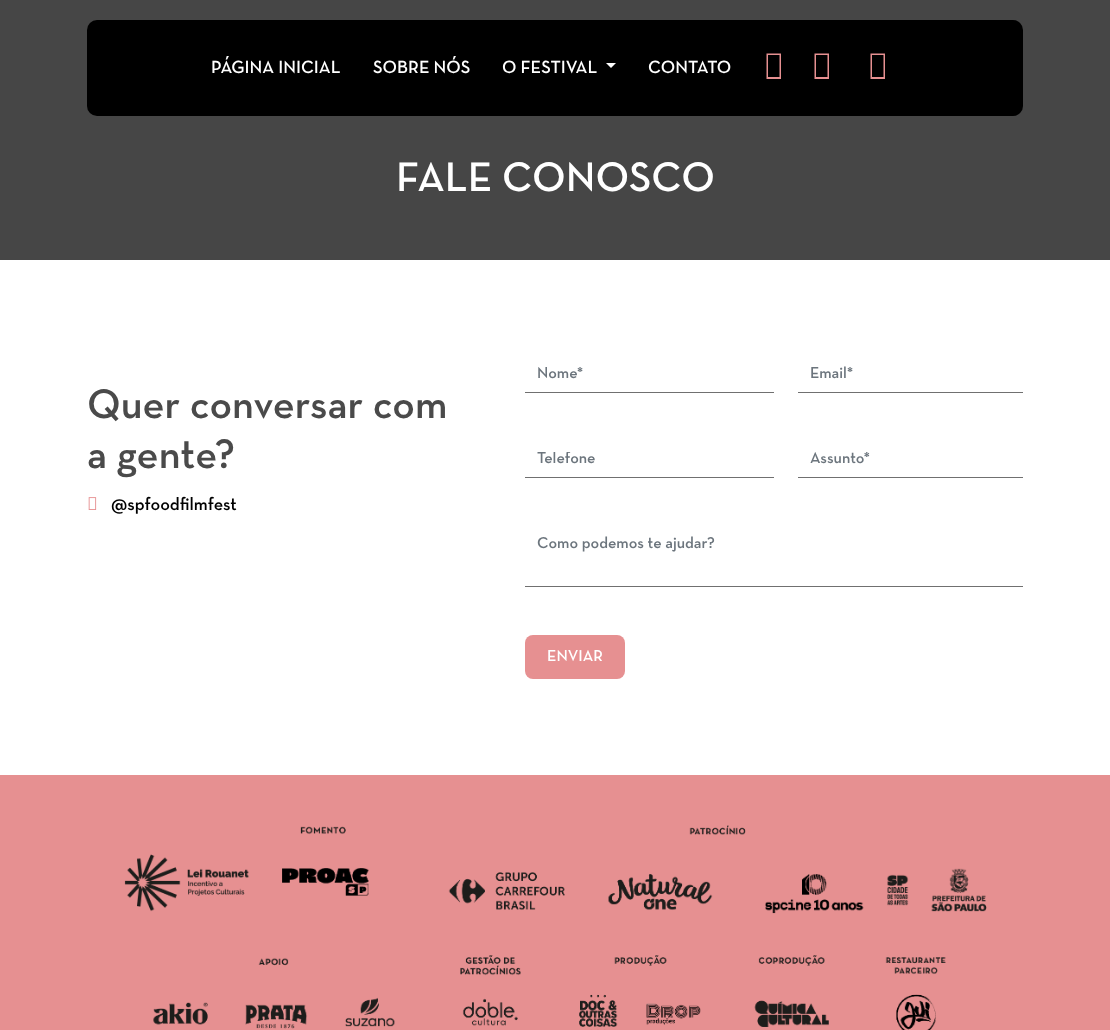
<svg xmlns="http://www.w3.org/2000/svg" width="1110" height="1030">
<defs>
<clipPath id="clip1"><rect x="537" y="452" width="225" height="15"/></clipPath>
</defs>
<rect width="100%" height="100%" fill="#fff"/>
<rect width="1110" height="260" fill="#464646"/>
<rect x="87" y="20" width="936" height="96" rx="10" fill="#000"/>
<text x="211" y="73" style="font-family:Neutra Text;font-size:18px;font-weight:500;fill:#fff">PÁGINA INICIAL</text>
<text x="373" y="73" style="font-family:Neutra Text;font-size:18px;font-weight:500;fill:#fff">SOBRE NÓS</text>
<text x="502" y="73" style="font-family:Neutra Text;font-size:18px;font-weight:500;fill:#fff">O FESTIVAL</text>
<path d="M606 63h10l-5 5z" fill="#fff"/>
<text x="648" y="73" style="font-family:Neutra Text;font-size:18px;font-weight:500;fill:#fff">CONTATO</text>
<path d="M766.5 79v-25.5h14.5v25.5zm1.5-2h11.5v-22h-11.5zm46.5 2v-25.5h14.5v25.5zm1.5-2h11.5v-22h-11.5z" fill="#e69091"/>
<path d="M870.5 79v-25.5h14.5v25.5zm1.5-2h11.5v-22h-11.5z" fill="#e69091"/>
<text x="396" y="191" style="font-family:Neutra Text;font-size:42px;font-weight:500;fill:#fff">FALE CONOSCO</text>
<text x="87" y="418" style="font-family:Neutra Text;font-size:42px;font-weight:500;fill:#4a4a4a">Quer conversar com</text>
<text x="87" y="468" style="font-family:Neutra Text;font-size:42px;font-weight:500;fill:#4a4a4a">a gente?</text>
<image x="88" y="497" width="9" height="13" href="media/1.png"/>
<text x="111" y="510" style="font-family:Neutra Text;font-size:18px;font-weight:500;fill:#000">@spfoodfilmfest</text>
<rect x="525" y="392" width="249" height="1" fill="#707070"/>
<text x="537" y="378" style="font-family:Neutra Text;font-size:16px;font-weight:500;fill:#6c757d">Nome*</text>
<rect x="798" y="392" width="225" height="1" fill="#707070"/>
<text x="810" y="378" style="font-family:Neutra Text;font-size:16px;font-weight:500;fill:#6c757d">Email*</text>
<rect x="525" y="477" width="249" height="1" fill="#707070"/>
<g clip-path="url(#clip1)">
<text x="537" y="463" style="font-family:Neutra Text;font-size:16px;font-weight:500;fill:#6c757d">Telefone</text>
</g>
<rect x="798" y="477" width="225" height="1" fill="#707070"/>
<text x="810" y="463" style="font-family:Neutra Text;font-size:16px;font-weight:500;fill:#6c757d">Assunto*</text>
<rect x="525" y="586" width="498" height="1" fill="#707070"/>
<text x="537" y="548" style="font-family:Neutra Text;font-size:16px;font-weight:500;fill:#6c757d">Como podemos te ajudar?</text>
<rect x="525" y="635" width="100" height="44" rx="8" fill="#e69091"/>
<text x="547" y="661" style="font-family:Neutra Text;font-size:16px;font-weight:500;fill:#fff">ENVIAR</text>
<rect y="775" width="1110" height="255" fill="#e69091"/>
<image x="124" y="825" width="863" height="205" href="media/2.png"/>
</svg>
